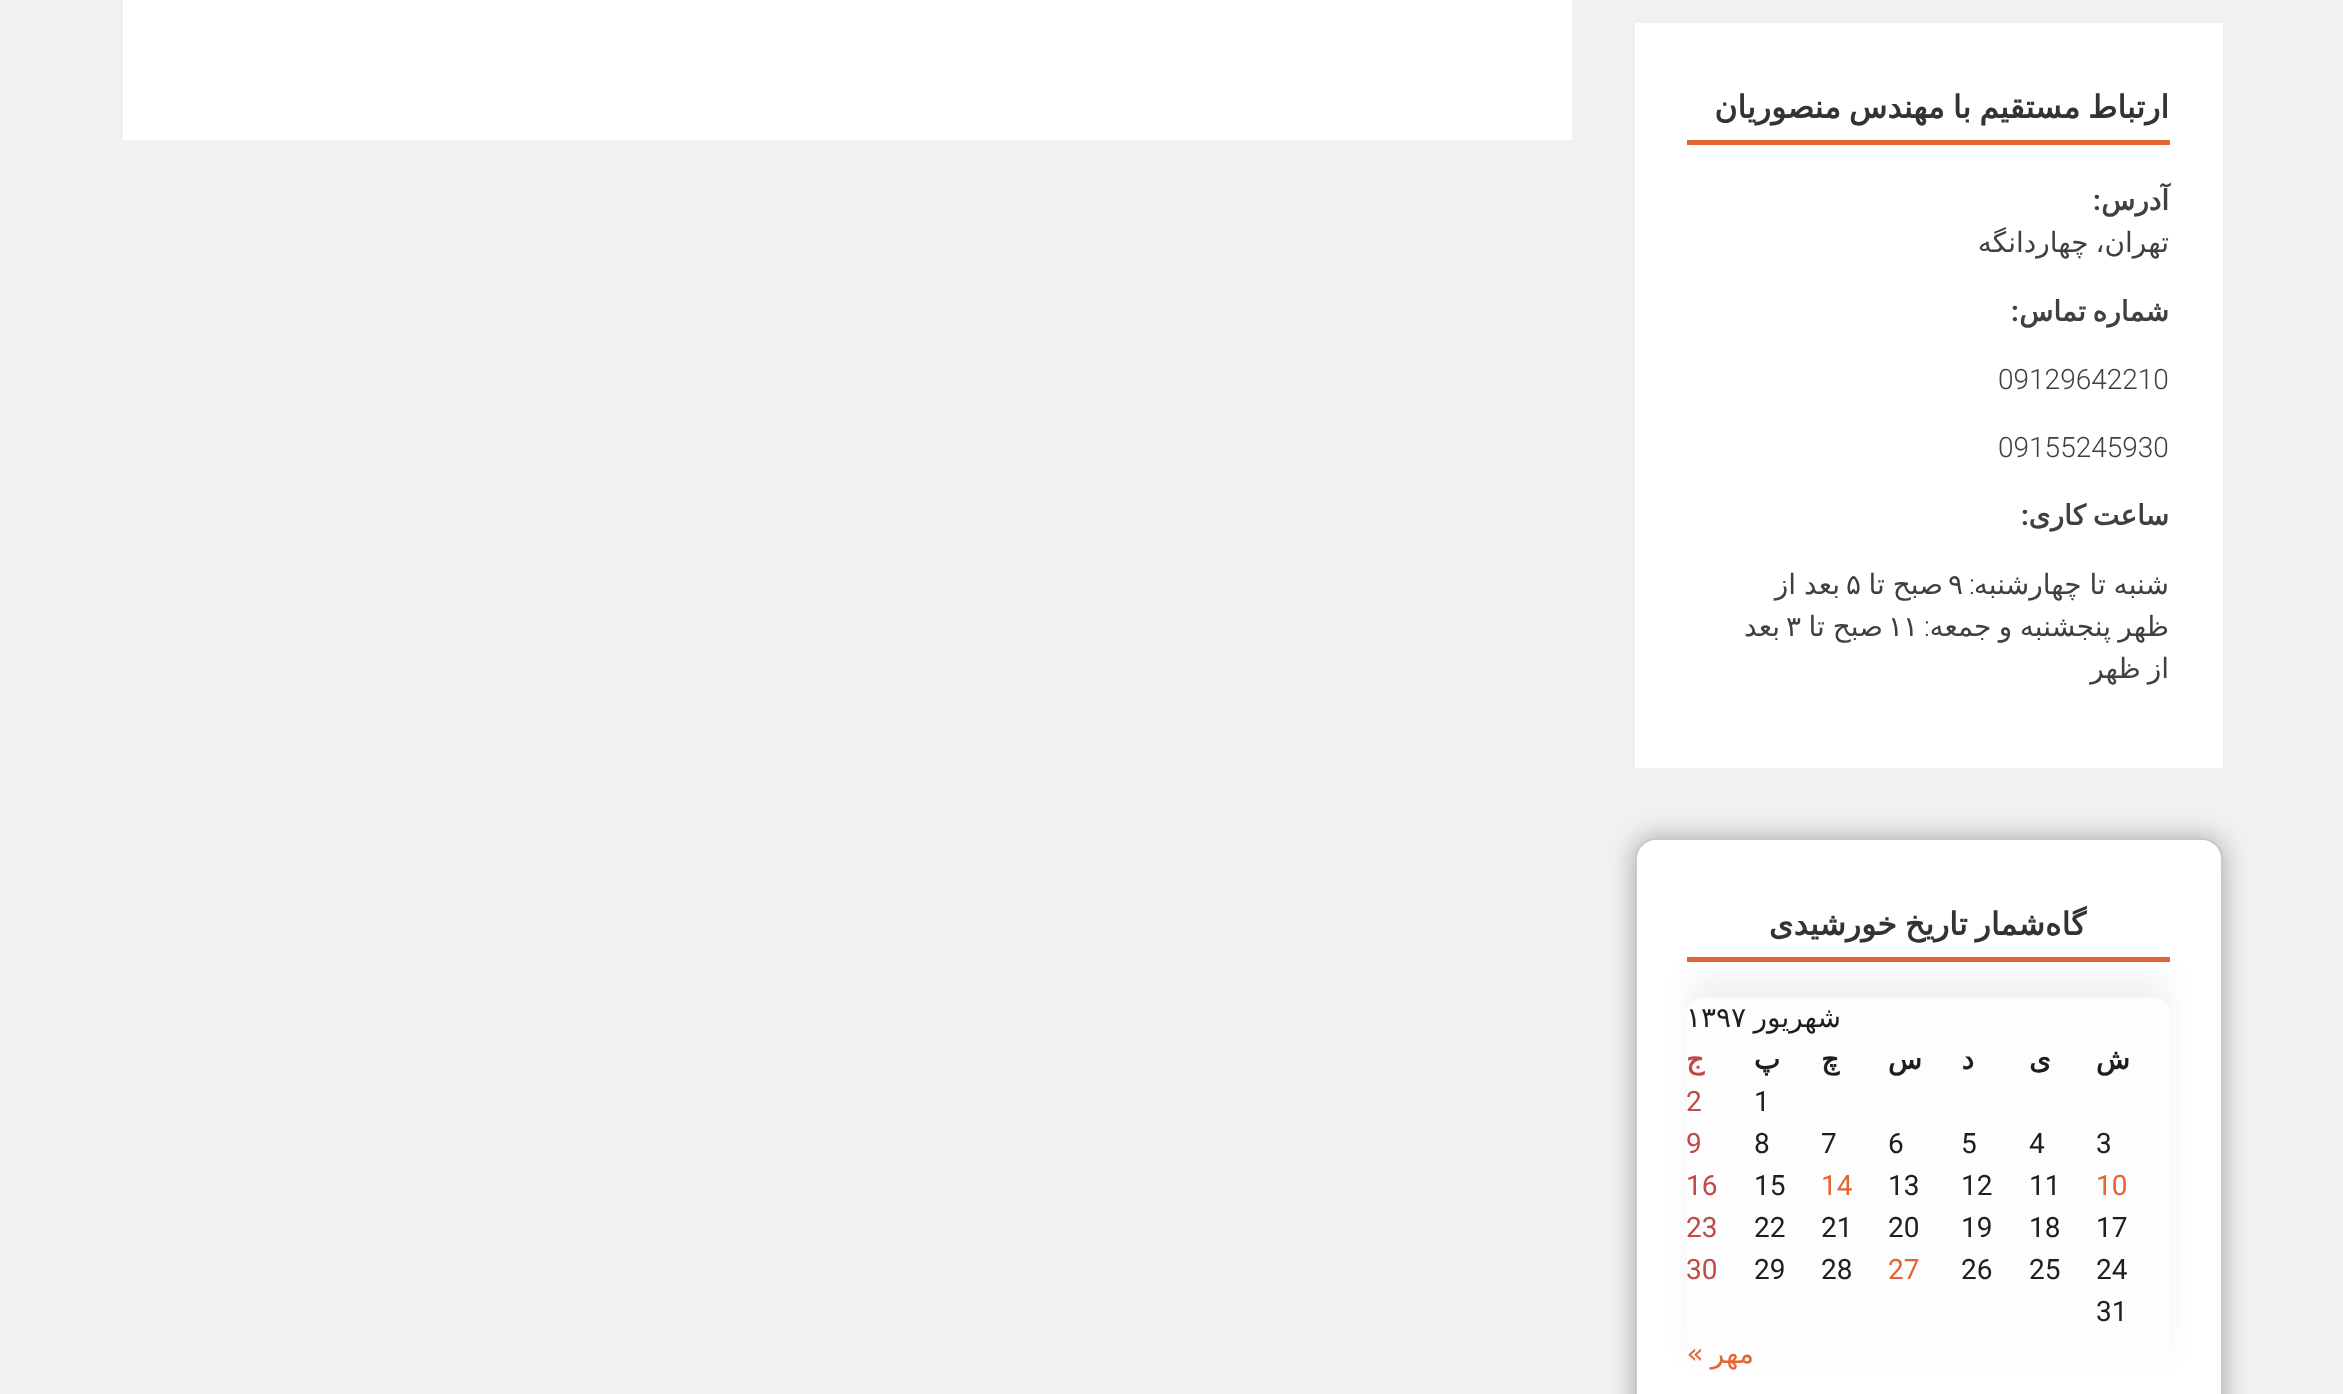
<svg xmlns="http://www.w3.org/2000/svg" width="2343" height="1394">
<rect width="100%" height="100%" fill="#f1f1f1"/>
<rect x="123" width="1449" height="140" fill="#fff"/>
<rect x="1635" y="23" width="588" height="745" fill="#fff"/>
<rect x="1687" y="140" width="483" height="5" fill="#e66432"/>
<text x="2169" y="118" word-spacing="-2" style="font-family:DejaVu Sans;font-size:31.5px;font-weight:bold;direction:rtl;fill:#333">ارتباط مستقیم با مهندس منصوریان</text>
<text x="2169" y="210" style="font-family:DejaVu Sans;font-size:28px;font-weight:bold;direction:rtl;fill:#404040">آدرس</text>
<text x="2101" y="210" style="font-family:Roboto;font-size:28px;font-weight:bold;direction:rtl;fill:#404040">:</text>
<text x="2169" y="252" word-spacing="-2" style="font-family:DejaVu Sans;font-size:28px;direction:rtl;fill:#404040">تهران، چهاردانگه</text>
<text x="2169" y="321" word-spacing="-2" style="font-family:DejaVu Sans;font-size:28px;font-weight:bold;direction:rtl;fill:#404040">شماره تماس</text>
<text x="2019" y="321" style="font-family:Roboto;font-size:28px;font-weight:bold;direction:rtl;fill:#404040">:</text>
<text x="1998" y="389" style="font-family:Roboto;font-size:28px;font-weight:300;fill:#404040">09129642210</text>
<text x="1998" y="457" style="font-family:Roboto;font-size:28px;font-weight:300;fill:#404040">09155245930</text>
<text x="2169" y="525" word-spacing="-2" style="font-family:DejaVu Sans;font-size:28px;font-weight:bold;direction:rtl;fill:#404040">ساعت کاری</text>
<text x="2029" y="525" style="font-family:Roboto;font-size:28px;font-weight:bold;direction:rtl;fill:#404040">:</text>
<text x="2169" y="594" word-spacing="-1" style="font-family:DejaVu Sans;font-size:28px;direction:rtl;fill:#404040">شنبه تا چهارشنبه</text>
<text x="1975" y="594" style="font-family:Roboto;font-size:28px;font-weight:300;direction:rtl;fill:#404040">:</text>
<text x="1948" y="594" style="font-family:DejaVu Sans;font-size:28px;fill:#404040">۹</text>
<text x="1943" y="594" word-spacing="-1" style="font-family:DejaVu Sans;font-size:28px;direction:rtl;fill:#404040">صبح تا</text>
<text x="1846" y="594" style="font-family:DejaVu Sans;font-size:28px;fill:#404040">۵</text>
<text x="1840" y="594" word-spacing="-1" style="font-family:DejaVu Sans;font-size:28px;direction:rtl;fill:#404040">بعد از</text>
<text x="2169" y="636" word-spacing="-1.5" style="font-family:DejaVu Sans;font-size:28px;direction:rtl;fill:#404040">ظهر پنجشنبه و جمعه</text>
<text x="1930" y="636" style="font-family:Roboto;font-size:28px;font-weight:300;direction:rtl;fill:#404040">:</text>
<text x="1888" y="636" style="font-family:DejaVu Sans;font-size:28px;fill:#404040">۱۱</text>
<text x="1883" y="636" word-spacing="-1" style="font-family:DejaVu Sans;font-size:28px;direction:rtl;fill:#404040">صبح تا</text>
<text x="1786" y="636" style="font-family:DejaVu Sans;font-size:28px;fill:#404040">۳</text>
<text x="1780" y="636" style="font-family:DejaVu Sans;font-size:28px;direction:rtl;fill:#404040">بعد</text>
<text x="2169" y="678" word-spacing="-2" style="font-family:DejaVu Sans;font-size:28px;direction:rtl;fill:#404040">از ظهر</text>
<rect x="1635" y="838" width="588" height="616" rx="21" fill="#0000004f" filter="blur(13px)"/>
<rect x="1635" y="838" width="588" height="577" rx="21" fill="#fff"/>
<rect x="1636" y="839" width="586" height="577" rx="20" fill="none" stroke="#8080806e" stroke-width="2"/>
<rect x="1687" y="957" width="483" height="5" fill="#e66432"/>
<text x="2086" y="935" word-spacing="-2" style="font-family:DejaVu Sans;font-size:31.5px;font-weight:bold;direction:rtl;fill:#333">گاه‌شمار تاریخ خورشیدی</text>
<rect x="1687" y="975" width="483" height="378" rx="16" fill="#8080801a" filter="blur(12px)"/>
<rect x="1687" y="998" width="483" height="378" rx="16" fill="#fdfdfd"/>
<text x="1841" y="1027" style="font-family:DejaVu Sans;font-size:28px;direction:rtl;fill:#1e1e1e">شهریور</text>
<text x="1686" y="1027" style="font-family:DejaVu Sans;font-size:28px;fill:#1e1e1e">۱۳۹۷</text>
<text x="2130" y="1069" style="font-family:DejaVu Sans;font-size:28px;font-weight:bold;direction:rtl;fill:#1e1e1e">ش</text>
<text x="2051" y="1069" style="font-family:DejaVu Sans;font-size:28px;font-weight:bold;direction:rtl;fill:#1e1e1e">ی</text>
<text x="1974" y="1069" style="font-family:DejaVu Sans;font-size:28px;font-weight:bold;direction:rtl;fill:#1e1e1e">د</text>
<text x="1922" y="1069" style="font-family:DejaVu Sans;font-size:28px;font-weight:bold;direction:rtl;fill:#1e1e1e">س</text>
<text x="1839" y="1069" style="font-family:DejaVu Sans;font-size:28px;font-weight:bold;direction:rtl;fill:#1e1e1e">چ</text>
<text x="1780" y="1069" style="font-family:DejaVu Sans;font-size:28px;font-weight:bold;direction:rtl;fill:#1e1e1e">پ</text>
<text x="1704" y="1069" style="font-family:DejaVu Sans;font-size:28px;font-weight:bold;direction:rtl;fill:#bf4a4a">ج</text>
<text x="1754" y="1111" style="font-family:Roboto;font-size:28px;fill:#1e1e1e">1</text>
<text x="1686" y="1111" style="font-family:Roboto;font-size:28px;fill:#bf4a4a">2</text>
<text x="2096" y="1153" style="font-family:Roboto;font-size:28px;fill:#1e1e1e">3</text>
<text x="2029" y="1153" style="font-family:Roboto;font-size:28px;fill:#1e1e1e">4</text>
<text x="1961" y="1153" style="font-family:Roboto;font-size:28px;fill:#1e1e1e">5</text>
<text x="1888" y="1153" style="font-family:Roboto;font-size:28px;fill:#1e1e1e">6</text>
<text x="1821" y="1153" style="font-family:Roboto;font-size:28px;fill:#1e1e1e">7</text>
<text x="1754" y="1153" style="font-family:Roboto;font-size:28px;fill:#1e1e1e">8</text>
<text x="1686" y="1153" style="font-family:Roboto;font-size:28px;fill:#bf4a4a">9</text>
<text x="2096" y="1195" style="font-family:Roboto;font-size:28px;fill:#e66432">10</text>
<text x="2029" y="1195" style="font-family:Roboto;font-size:28px;fill:#1e1e1e">11</text>
<text x="1961" y="1195" style="font-family:Roboto;font-size:28px;fill:#1e1e1e">12</text>
<text x="1888" y="1195" style="font-family:Roboto;font-size:28px;fill:#1e1e1e">13</text>
<text x="1821" y="1195" style="font-family:Roboto;font-size:28px;fill:#e66432">14</text>
<text x="1754" y="1195" style="font-family:Roboto;font-size:28px;fill:#1e1e1e">15</text>
<text x="1686" y="1195" style="font-family:Roboto;font-size:28px;fill:#bf4a4a">16</text>
<text x="2096" y="1237" style="font-family:Roboto;font-size:28px;fill:#1e1e1e">17</text>
<text x="2029" y="1237" style="font-family:Roboto;font-size:28px;fill:#1e1e1e">18</text>
<text x="1961" y="1237" style="font-family:Roboto;font-size:28px;fill:#1e1e1e">19</text>
<text x="1888" y="1237" style="font-family:Roboto;font-size:28px;fill:#1e1e1e">20</text>
<text x="1821" y="1237" style="font-family:Roboto;font-size:28px;fill:#1e1e1e">21</text>
<text x="1754" y="1237" style="font-family:Roboto;font-size:28px;fill:#1e1e1e">22</text>
<text x="1686" y="1237" style="font-family:Roboto;font-size:28px;fill:#bf4a4a">23</text>
<text x="2096" y="1279" style="font-family:Roboto;font-size:28px;fill:#1e1e1e">24</text>
<text x="2029" y="1279" style="font-family:Roboto;font-size:28px;fill:#1e1e1e">25</text>
<text x="1961" y="1279" style="font-family:Roboto;font-size:28px;fill:#1e1e1e">26</text>
<text x="1888" y="1279" style="font-family:Roboto;font-size:28px;fill:#e66432">27</text>
<text x="1821" y="1279" style="font-family:Roboto;font-size:28px;fill:#1e1e1e">28</text>
<text x="1754" y="1279" style="font-family:Roboto;font-size:28px;fill:#1e1e1e">29</text>
<text x="1686" y="1279" style="font-family:Roboto;font-size:28px;fill:#bf4a4a">30</text>
<text x="2096" y="1321" style="font-family:Roboto;font-size:28px;fill:#1e1e1e">31</text>
<text x="1754" y="1363" word-spacing="-2" style="font-family:DejaVu Sans;font-size:28px;direction:rtl;fill:#e66432">مهر »</text>
</svg>
